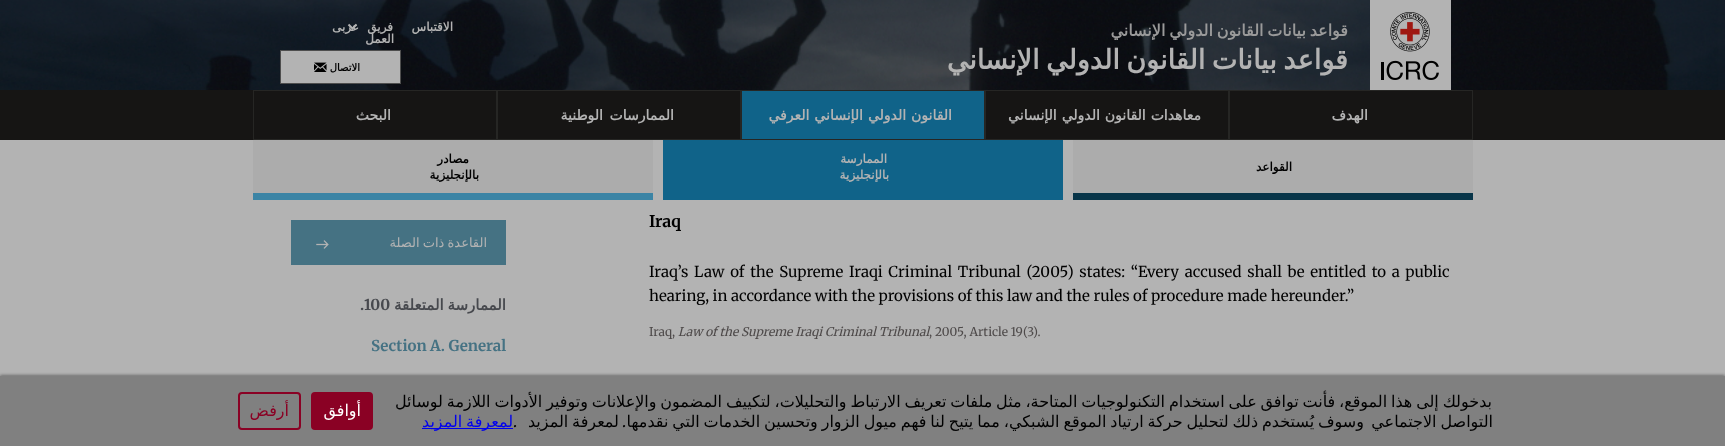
<svg xmlns="http://www.w3.org/2000/svg" width="1725" height="446">
<rect width="100%" height="100%" fill="#b3b3b3"/>
<image x="0" y="0" width="1725" height="90" href="media/1.png"/>
<rect x="1370" width="81" height="90" fill="#b3b3b3"/>
<image x="1381" y="12" width="58" height="68" href="media/2.png"/>
<text x="1348" y="36" word-spacing="-1.25" style="font-family:DejaVu Sans;font-size:16px;font-weight:bold;direction:rtl;fill:#9a9a9a">قواعد بيانات القانون الدولي الإنساني</text>
<text x="1348" y="69" word-spacing="-2" style="font-family:DejaVu Sans;font-size:27px;font-weight:bold;direction:rtl;fill:#b3b3b3">قواعد بيانات القانون الدولي الإنساني</text>
<text x="453" y="31" style="font-family:DejaVu Sans;font-size:12px;font-weight:bold;letter-spacing:0.5px;direction:rtl;fill:#b3b3b3">الاقتباس</text>
<text x="393" y="31" style="font-family:DejaVu Sans;font-size:12px;font-weight:bold;letter-spacing:0.5px;direction:rtl;fill:#b3b3b3">فريق</text>
<text x="394" y="43" style="font-family:DejaVu Sans;font-size:12px;font-weight:bold;letter-spacing:0.5px;direction:rtl;fill:#b3b3b3">العمل</text>
<path d="M348.5 24.5l4 4l4-4" fill="none" stroke="#b3b3b3" stroke-width="2"/>
<text x="359" y="31" style="font-family:DejaVu Sans;font-size:12px;font-weight:bold;letter-spacing:0.5px;direction:rtl;fill:#b3b3b3">عربى</text>
<rect x="280.5" y="50.5" width="120" height="33" fill="#b3b3b3" stroke="#4e4e4e"/>
<text x="360" y="71" style="font-family:DejaVu Sans;font-size:10px;font-weight:bold;direction:rtl;fill:#000">الاتصال</text>
<image x="314" y="62" width="13" height="10" href="media/3.png"/>
<rect y="90" width="1725" height="50" fill="#161514"/>
<rect x="1229.5" y="90.5" width="243" height="49" fill="none" stroke="#262624"/>
<text x="1368" y="120" style="font-family:DejaVu Sans;font-size:14px;font-weight:bold;letter-spacing:-0.15px;direction:rtl;fill:#b3b3b3">الهدف</text>
<rect x="985.5" y="90.5" width="243" height="49" fill="none" stroke="#262624"/>
<text x="1201" y="120" word-spacing="0.5" style="font-family:DejaVu Sans;font-size:14px;font-weight:bold;letter-spacing:-0.15px;direction:rtl;fill:#b3b3b3">معاهدات القانون الدولي الإنساني</text>
<rect x="741.5" y="90.5" width="243" height="49" fill="#106389" stroke="#262624"/>
<text x="952" y="120" word-spacing="0.5" style="font-family:DejaVu Sans;font-size:14px;font-weight:bold;letter-spacing:-0.15px;direction:rtl;fill:#b3b3b3">القانون الدولي الإنساني العرفي</text>
<rect x="497.5" y="90.5" width="243" height="49" fill="none" stroke="#262624"/>
<text x="674" y="120" word-spacing="2" style="font-family:DejaVu Sans;font-size:14px;font-weight:bold;letter-spacing:-0.15px;direction:rtl;fill:#b3b3b3">الممارسات الوطنية</text>
<rect x="253.5" y="90.5" width="243" height="49" fill="none" stroke="#262624"/>
<text x="391" y="120" style="font-family:DejaVu Sans;font-size:14px;font-weight:bold;letter-spacing:-0.15px;direction:rtl;fill:#b3b3b3">البحث</text>
<rect x="1073" y="140" width="400" height="53" fill="#acacac"/>
<rect x="1073" y="193" width="400" height="7" fill="#083549"/>
<text x="1292" y="171" style="font-family:DejaVu Sans;font-size:12px;font-weight:bold;letter-spacing:0.1px;direction:rtl;fill:#000">القواعد</text>
<rect x="663" y="140" width="400" height="60" fill="#106389"/>
<text x="887" y="163" style="font-family:DejaVu Sans;font-size:12px;font-weight:bold;letter-spacing:0.1px;direction:rtl;fill:#b3b3b3">الممارسة</text>
<text x="889" y="179" style="font-family:DejaVu Sans;font-size:12px;font-weight:bold;letter-spacing:0.1px;direction:rtl;fill:#b3b3b3">بالإنجليزية</text>
<rect x="253" y="140" width="400" height="53" fill="#acacac"/>
<rect x="253" y="193" width="400" height="7" fill="#3b84a5"/>
<text x="469" y="163" style="font-family:DejaVu Sans;font-size:12px;font-weight:bold;letter-spacing:0.1px;direction:rtl;fill:#000">مصادر</text>
<text x="479" y="179" style="font-family:DejaVu Sans;font-size:12px;font-weight:bold;letter-spacing:0.1px;direction:rtl;fill:#000">بالإنجليزية</text>
<text x="649" y="227" style="font-family:Merriweather;font-size:16px;font-weight:bold;fill:#000">Iraq</text>
<text x="649" y="277" word-spacing="2.1" style="font-family:Merriweather;font-size:15px;fill:#000">Iraq’s Law of the Supreme Iraqi Criminal Tribunal (2005) states: “Every accused shall be entitled to a public</text>
<text x="649" y="301" style="font-family:Merriweather;font-size:15px;fill:#000">hearing, in accordance with the provisions of this law and the rules of procedure made hereunder.”</text>
<text x="678" y="336" style="font-family:Merriweather;font-size:12px;font-style:italic;fill:#4e4a4a">Law of the Supreme Iraqi Criminal Tribunal</text>
<text x="929" y="336" style="font-family:Merriweather;font-size:12px;fill:#4e4a4a">, 2005, Article 19(3).</text>
<text x="649" y="336" style="font-family:Merriweather;font-size:12px;fill:#4e4a4a">Iraq,</text>
<rect x="291" y="220" width="215" height="45" fill="#457283"/>
<text x="487" y="247" word-spacing="-1" style="font-family:DejaVu Sans;font-size:13px;direction:rtl;fill:#b3b3b3">القاعدة ذات الصلة</text>
<image x="316" y="240" width="13" height="9" href="media/4.png"/>
<text x="506" y="310" word-spacing="-1" style="font-family:DejaVu Sans;font-size:15px;font-weight:bold;direction:rtl;fill:#47494e">الممارسة المتعلقة</text>
<text x="364" y="310" style="font-family:Merriweather;font-size:15px;font-weight:bold;fill:#47494e">100</text>
<text x="360" y="310" style="font-family:Merriweather;font-size:15px;font-weight:bold;fill:#47494e">.</text>
<text x="371" y="351" style="font-family:Merriweather;font-size:15px;font-weight:bold;fill:#457283">Section A. General</text>
<rect y="375" width="1725" height="70" fill="#6b6b6b" filter="blur(1.5px)"/>
<rect y="376" width="1725" height="70" fill="#808080"/>
<text x="1492" y="407" word-spacing="-1.25" style="font-family:DejaVu Sans;font-size:16px;direction:rtl;fill:#000">بدخولك إلى هذا الموقع، فأنت توافق على استخدام التكنولوجيات المتاحة، مثل ملفات تعريف الارتباط والتحليلات، لتكييف المضمون والإعلانات وتوفير الأدوات اللازمة لوسائل</text>
<text x="1364" y="427" word-spacing="-1.2" style="font-family:DejaVu Sans;font-size:16px;direction:rtl;fill:#000">وسوف يُستخدم ذلك لتحليل حركة ارتياد الموقع الشبكي، مما يتيح لنا فهم ميول الزوار وتحسين الخدمات التي نقدمها</text>
<text x="1493" y="427" word-spacing="-1.2" style="font-family:DejaVu Sans;font-size:16px;direction:rtl;fill:#000">التواصل الاجتماعي</text>
<text x="626" y="427" style="font-family:Merriweather;font-size:16px;direction:rtl;fill:#000">.</text>
<text x="619" y="427" word-spacing="-1.2" style="font-family:DejaVu Sans;font-size:16px;direction:rtl;fill:#000">لمعرفة المزيد</text>
<text x="513" y="427" style="font-family:Merriweather;font-size:16px;fill:#000">.</text>
<rect x="422" y="428" width="91" height="1" fill="#00e"/>
<text x="513" y="427" word-spacing="-1.25" style="font-family:DejaVu Sans;font-size:16px;direction:rtl;fill:#00e">لمعرفة المزيد</text>
<rect x="312" y="393" width="60" height="36" rx="3" fill="#8a0124" stroke="#8a0124" stroke-width="2"/>
<text x="361" y="416" style="font-family:DejaVu Sans;font-size:16px;direction:rtl;fill:#fff">أوافق</text>
<rect x="239" y="393" width="61" height="36" rx="3" fill="none" stroke="#8a0124" stroke-width="2"/>
<text x="289" y="416" style="font-family:DejaVu Sans;font-size:16px;direction:rtl;fill:#8a0124">أرفض</text>
</svg>
